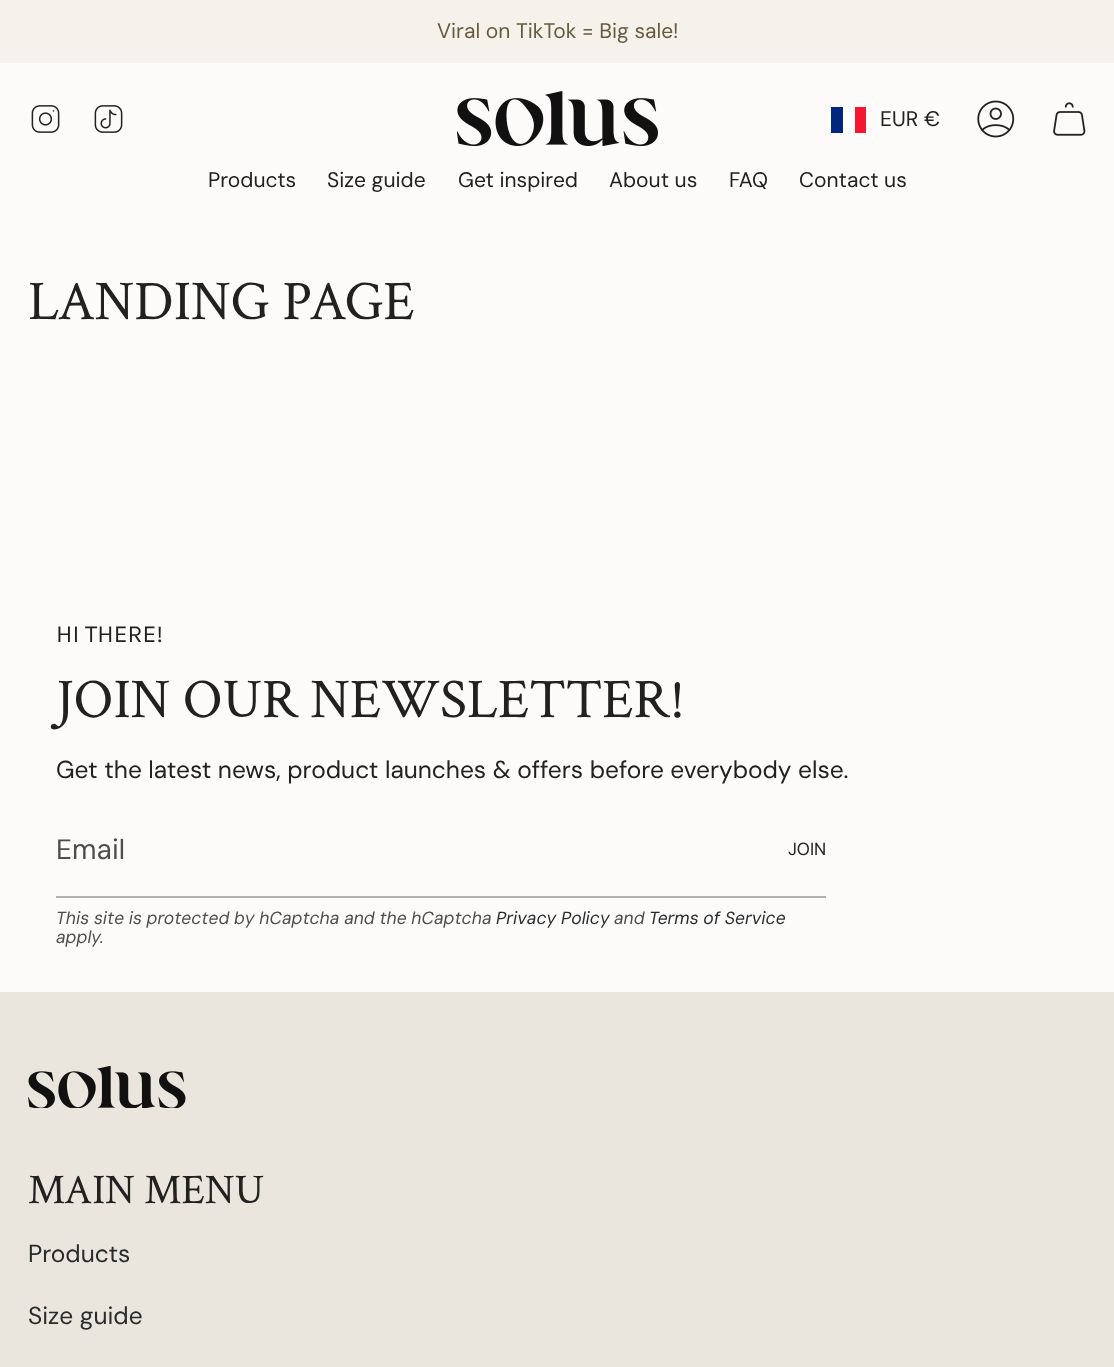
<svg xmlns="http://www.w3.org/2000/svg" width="1114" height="1367">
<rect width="100%" height="100%" fill="#fcfbf9"/>
<rect width="1114" height="63" fill="#f5f2ec"/>
<text x="437" y="38" style="font-family:'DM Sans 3';font-size:21px;fill:#685a3f">Viral on TikTok = Big sale!</text>
<image x="31" y="105" width="29" height="28" href="media/1.png"/>
<image x="94" y="105" width="29" height="28" href="media/2.png"/>
<image x="457" y="91" width="201" height="56" href="media/3.png"/>
<rect x="843" y="107" width="12" height="26" fill="#fff"/>
<rect x="831" y="107" width="12" height="26" fill="#00267f"/>
<rect x="855" y="107" width="11" height="26" fill="#f31830"/>
<text x="880" y="126" style="font-family:'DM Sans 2';font-size:21px;fill:#212121">EUR</text>
<text x="924" y="126" style="font-family:'DM Sans 3';font-size:21px;fill:#212121">€</text>
<image x="977" y="100" width="38" height="38" href="media/4.png"/>
<image x="1053" y="102" width="33" height="34" href="media/5.png"/>
<text x="208" y="187" style="font-family:'DM Sans 3';font-size:21px;fill:#212121">Products</text>
<text x="327" y="187" style="font-family:'DM Sans 3';font-size:21px;fill:#212121">Size guide</text>
<text x="458" y="187" style="font-family:'DM Sans 3';font-size:21px;fill:#212121">Get inspired</text>
<text x="609" y="187" style="font-family:'DM Sans 3';font-size:21px;fill:#212121">About us</text>
<text x="729" y="187" style="font-family:'DM Sans 3';font-size:21px;fill:#212121">FAQ</text>
<text x="799" y="187" style="font-family:'DM Sans 3';font-size:21px;fill:#212121">Contact us</text>
<text x="28" y="319" style="font-family:Crimson Text;font-size:56px;fill:#212121">LANDING PAGE</text>
<text x="56" y="642" style="font-family:Karla;font-size:24.5px;fill:#212121">HI THERE!</text>
<text x="56" y="717" style="font-family:Crimson Text;font-size:56px;fill:#212121">JOIN OUR NEWSLETTER!</text>
<text x="56" y="778" style="font-family:DM Sans;font-size:24.5px;fill:#212121">Get the latest news, product launches &amp; offers before everybody else.</text>
<rect x="56" y="896" width="770" height="2" fill="#afafad"/>
<text x="56" y="859" style="font-family:'DM Sans 2';font-size:28px;fill:#4d4d4c">Email</text>
<text x="788" y="855" style="font-family:'DM Sans 2';font-size:17.5px;fill:#212121">JOIN</text>
<text x="56" y="924" style="font-family:DM Sans;font-size:17.5px;font-style:italic;fill:#4d4d4c">This site is protected by hCaptcha and the hCaptcha</text>
<text x="496" y="924" style="font-family:DM Sans;font-size:17.5px;font-style:italic;fill:#282c2e">Privacy Policy</text>
<text x="614" y="924" style="font-family:DM Sans;font-size:17.5px;font-style:italic;fill:#4d4d4c">and</text>
<text x="649" y="924" style="font-family:DM Sans;font-size:17.5px;font-style:italic;fill:#282c2e">Terms of Service</text>
<text x="56" y="943" style="font-family:DM Sans;font-size:17.5px;font-style:italic;fill:#4d4d4c">apply.</text>
<rect y="992" width="1114" height="375" fill="#eae6dd"/>
<image x="28" y="1066" width="158" height="42" href="media/6.png"/>
<text x="28" y="1203" style="font-family:Crimson Text;font-size:42px;fill:#212121">MAIN MENU</text>
<text x="28" y="1262" style="font-family:DM Sans;font-size:24.5px;fill:#282c2e">Products</text>
<text x="28" y="1324" style="font-family:DM Sans;font-size:24.5px;fill:#282c2e">Size guide</text>
</svg>
